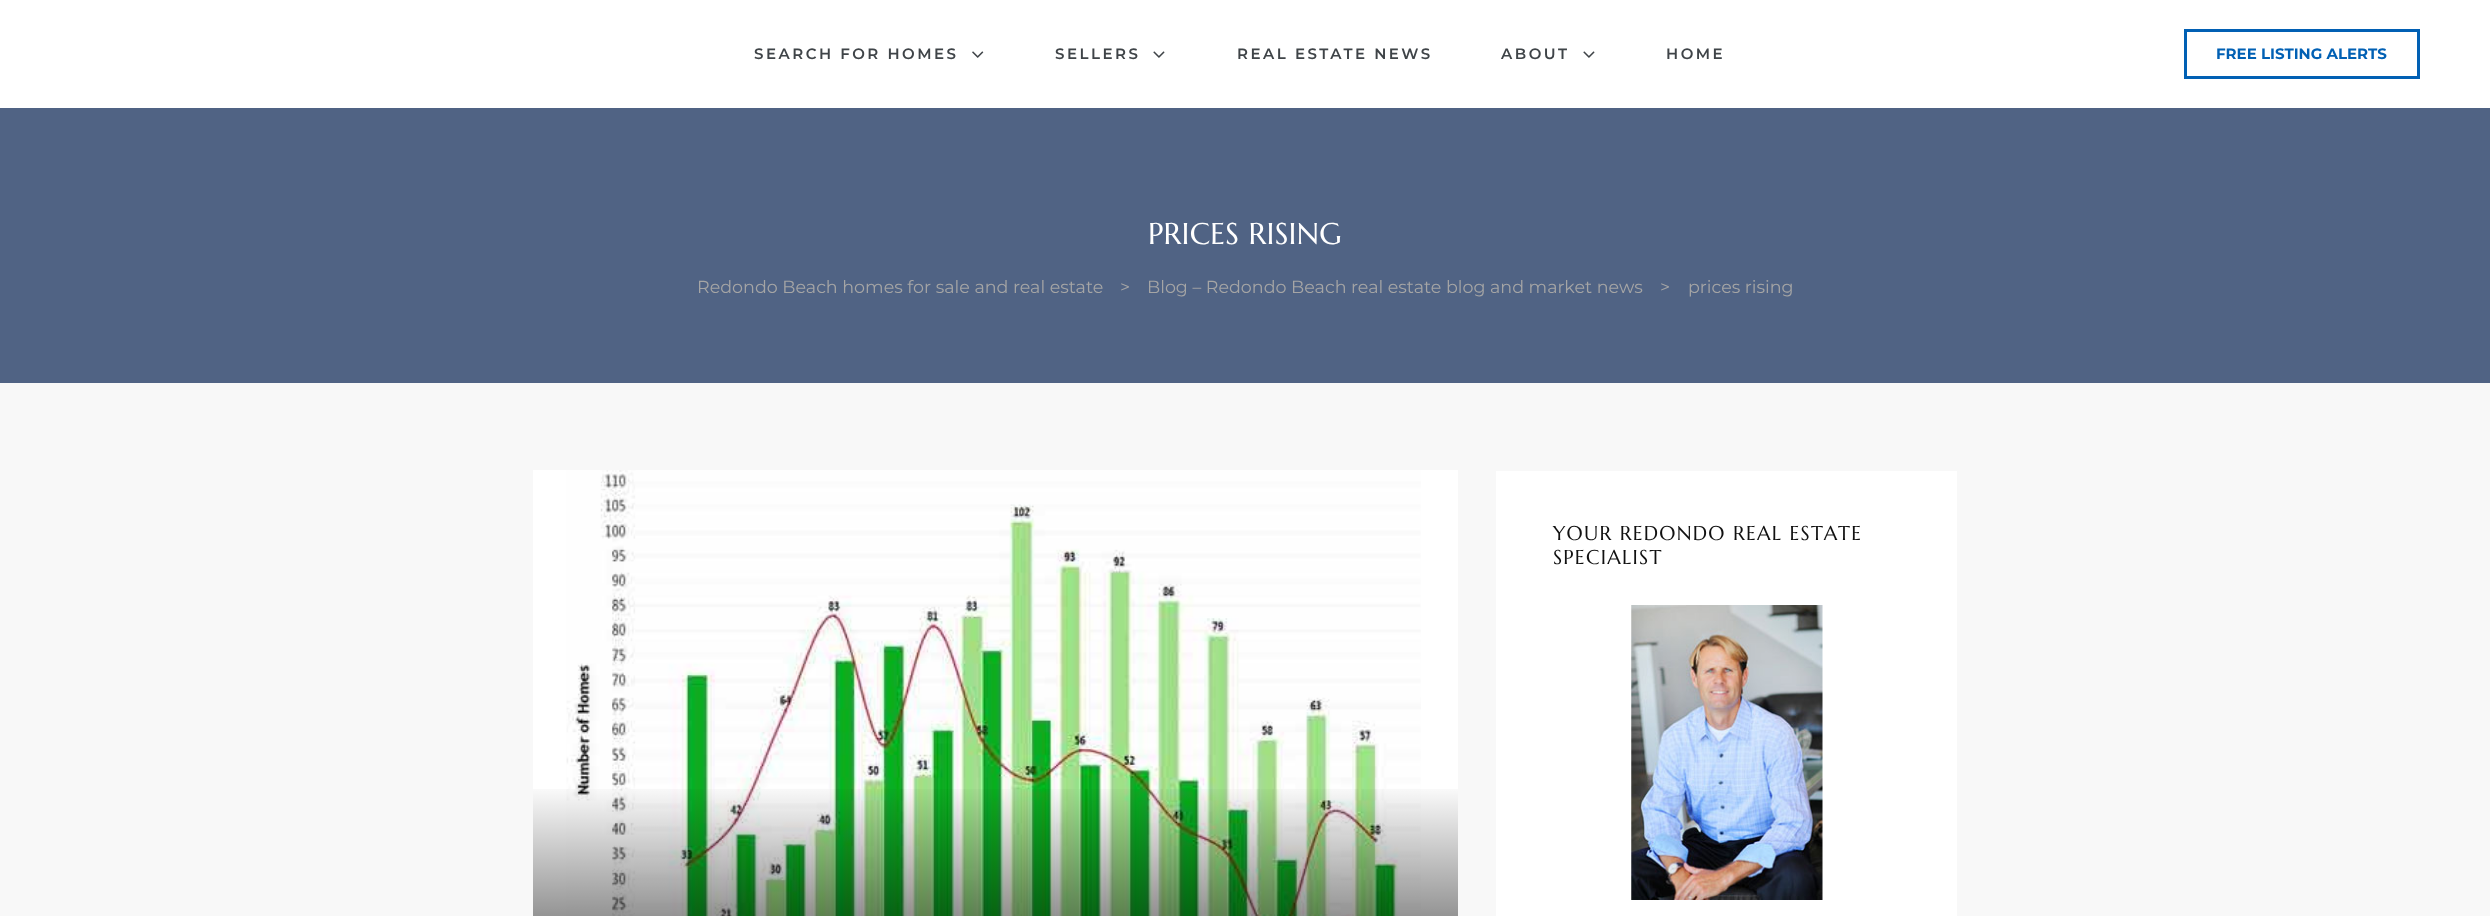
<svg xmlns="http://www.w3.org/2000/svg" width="2490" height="916">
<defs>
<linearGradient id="g1" gradientUnits="userSpaceOnUse" x1="995" y1="470" x2="995" y2="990"><stop offset="0.6" stop-color="#000" stop-opacity="0"/><stop offset="1" stop-color="#000" stop-opacity="0.65"/></linearGradient>
</defs>
<rect width="100%" height="100%" fill="#fff"/>
<text x="754" y="59" style="font-family:Montserrat;font-size:15px;font-weight:600;letter-spacing:2.5px;fill:#3f4448">SEARCH FOR HOMES</text>
<image x="972" y="51" width="12" height="7" href="media/1.png"/>
<text x="1055" y="59" style="font-family:Montserrat;font-size:15px;font-weight:600;letter-spacing:2.5px;fill:#3f4448">SELLERS</text>
<image x="1153" y="51" width="12" height="7" href="media/2.png"/>
<text x="1237" y="59" style="font-family:Montserrat;font-size:15px;font-weight:600;letter-spacing:2.5px;fill:#3f4448">REAL ESTATE NEWS</text>
<text x="1501" y="59" style="font-family:Montserrat;font-size:15px;font-weight:600;letter-spacing:2.5px;fill:#3f4448">ABOUT</text>
<image x="1583" y="51" width="12" height="7" href="media/2.png"/>
<text x="1666" y="59" style="font-family:Montserrat;font-size:15px;font-weight:600;letter-spacing:2.5px;fill:#3f4448">HOME</text>
<rect x="2185.5" y="30.5" width="233" height="47" fill="none" stroke="#0160b4" stroke-width="3"/>
<text x="2216" y="59" style="font-family:Montserrat;font-size:15px;font-weight:bold;fill:#0160b4">FREE LISTING ALERTS</text>
<rect y="108" width="2490" height="275" fill="#506384"/>
<text x="1148" y="244" style="font-family:Marcellus SC;font-size:30px;letter-spacing:0.25px;fill:#fff">PRICES RISING</text>
<text x="697" y="293" style="font-family:Montserrat;font-size:17.5px;fill:#a5a5a5">Redondo Beach homes for sale and real estate</text>
<text x="1120" y="293" style="font-family:Montserrat;font-size:17.5px;fill:#a5a5a5">&gt;</text>
<text x="1147" y="293" style="font-family:Montserrat;font-size:17.5px;fill:#a5a5a5">Blog – Redondo Beach real estate blog and market news</text>
<text x="1660" y="293" style="font-family:Montserrat;font-size:17.5px;fill:#a5a5a5">&gt;</text>
<text x="1688" y="293" style="font-family:Montserrat;font-size:17.5px;fill:#a5a5a5">prices rising</text>
<rect y="383" width="2490" height="533" fill="#f8f8f8"/>
<rect x="533" y="470" width="925" height="446" fill="#fff"/>
<image x="566" y="470" width="855" height="446" href="media/3.png"/>
<rect x="533" y="789" width="925" height="127" fill="url(#g1)"/>
<rect x="1496" y="471" width="461" height="445" fill="#fff"/>
<text x="1553" y="540" style="font-family:Marcellus SC;font-size:20px;letter-spacing:1.25px;fill:#111">YOUR REDONDO REAL ESTATE</text>
<text x="1553" y="564" style="font-family:Marcellus SC;font-size:20px;letter-spacing:1.25px;fill:#111">SPECIALIST</text>
<image x="1631" y="605" width="192" height="295" href="media/4.png"/>
</svg>
